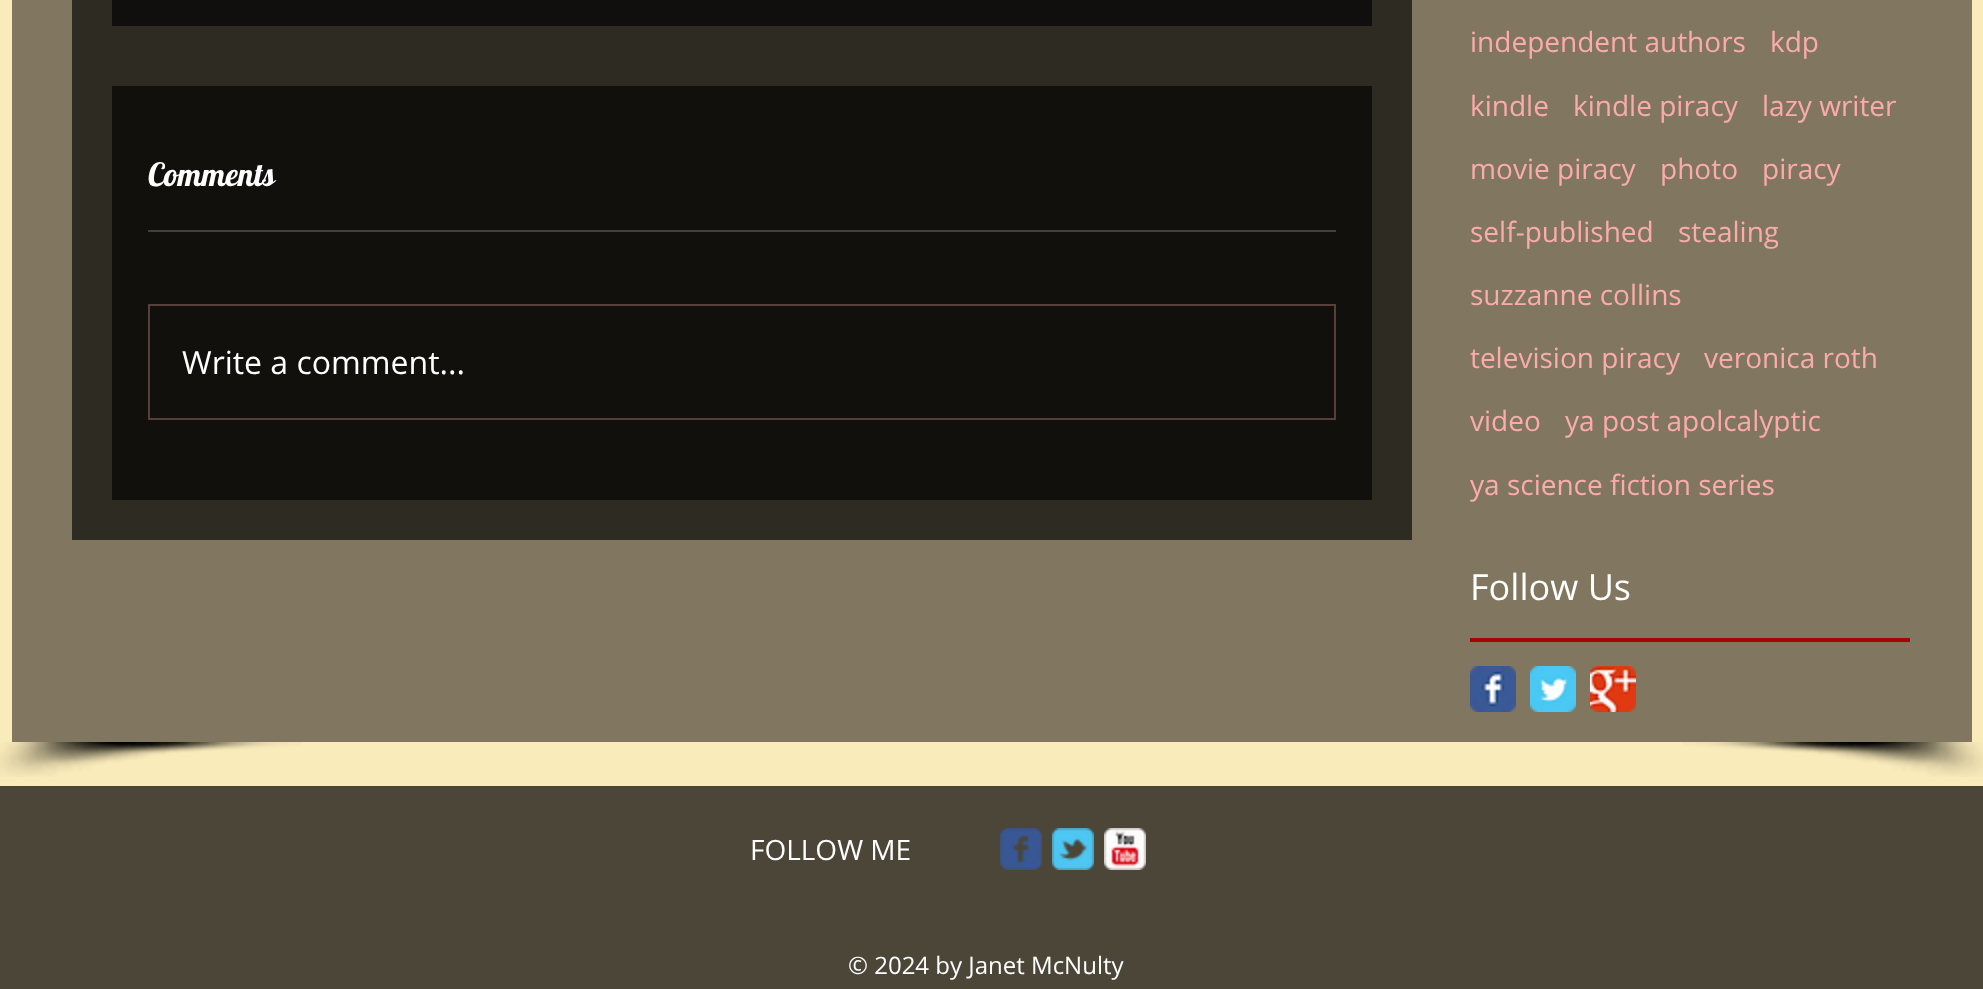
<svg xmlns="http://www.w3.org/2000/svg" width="1983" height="989">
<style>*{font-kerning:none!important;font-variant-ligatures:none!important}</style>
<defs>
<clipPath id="clip1"><rect x="1678" y="212" width="100" height="40"/></clipPath>
</defs>
<rect width="100%" height="100%" fill="#faebbb"/>
<rect x="12" width="1960" height="742" fill="#817760"/>
<image x="0" y="742" width="302" height="35" href="media/1.png"/>
<image x="1682" y="742" width="301" height="35" href="media/2.png"/>
<rect x="72" width="1340" height="540" fill="#2e2b23"/>
<rect x="112" width="1260" height="26" fill="#110f0d"/>
<rect x="112" y="86" width="1260" height="414" fill="#11100d"/>
<text x="148" y="186" style="font-family:Lobster;font-size:32px;fill:#fff">Comments</text>
<rect x="148" y="230" width="1188" height="2" fill="#41403d"/>
<rect x="149" y="305" width="1186" height="114" fill="none" stroke="#583f3c" stroke-width="2"/>
<text x="182" y="374" style="font-family:Open Sans;font-size:32px;fill:#fff">Write a comment...</text>
<text x="1470" y="52" style="font-family:Open Sans;font-size:28px;fill:#fcabab">independent authors</text>
<text x="1770" y="52" style="font-family:Open Sans;font-size:28px;fill:#fcabab">kdp</text>
<text x="1470" y="116" style="font-family:Open Sans;font-size:28px;fill:#fcabab">kindle</text>
<text x="1573" y="116" style="font-family:Open Sans;font-size:28px;fill:#fcabab">kindle piracy</text>
<text x="1762" y="116" style="font-family:Open Sans;font-size:28px;fill:#fcabab">lazy writer</text>
<text x="1470" y="179" style="font-family:Open Sans;font-size:28px;fill:#fcabab">movie piracy</text>
<text x="1660" y="179" style="font-family:Open Sans;font-size:28px;fill:#fcabab">photo</text>
<text x="1762" y="179" style="font-family:Open Sans;font-size:28px;fill:#fcabab">piracy</text>
<text x="1470" y="242" style="font-family:Open Sans;font-size:28px;fill:#fcabab">self-published</text>
<g clip-path="url(#clip1)">
<text x="1678" y="242" style="font-family:Open Sans;font-size:28px;fill:#fcabab">stealing</text>
</g>
<text x="1470" y="305" style="font-family:Open Sans;font-size:28px;fill:#fcabab">suzzanne collins</text>
<text x="1470" y="368" style="font-family:Open Sans;font-size:28px;fill:#fcabab">television piracy</text>
<text x="1704" y="368" style="font-family:Open Sans;font-size:28px;fill:#fcabab">veronica roth</text>
<text x="1470" y="431" style="font-family:Open Sans;font-size:28px;fill:#fcabab">video</text>
<text x="1565" y="431" style="font-family:Open Sans;font-size:28px;fill:#fcabab">ya post apolcalyptic</text>
<text x="1470" y="495" style="font-family:Open Sans;font-size:28px;fill:#fcabab">ya science fiction series</text>
<text x="1470" y="600" style="font-family:Open Sans;font-size:36px;fill:#fff">Follow Us</text>
<rect x="1470" y="638" width="440" height="4" fill="#a40606"/>
<image x="1470" y="666" width="46" height="46" href="media/3.png"/>
<image x="1530" y="666" width="46" height="46" href="media/4.png"/>
<image x="1590" y="666" width="46" height="46" href="media/5.png"/>
<rect y="786" width="1983" height="203" fill="#4b4638"/>
<text x="750" y="860" style="font-family:Open Sans;font-size:28px;fill:#fff">FOLLOW ME</text>
<image x="1000" y="828" width="42" height="42" href="media/6.png"/>
<image x="1052" y="828" width="42" height="42" href="media/7.png"/>
<image x="1104" y="828" width="42" height="42" href="media/8.png"/>
<text x="848" y="974" style="font-family:Open Sans;font-size:24px;fill:#fff">© 2024 by Janet McNulty</text>
</svg>
